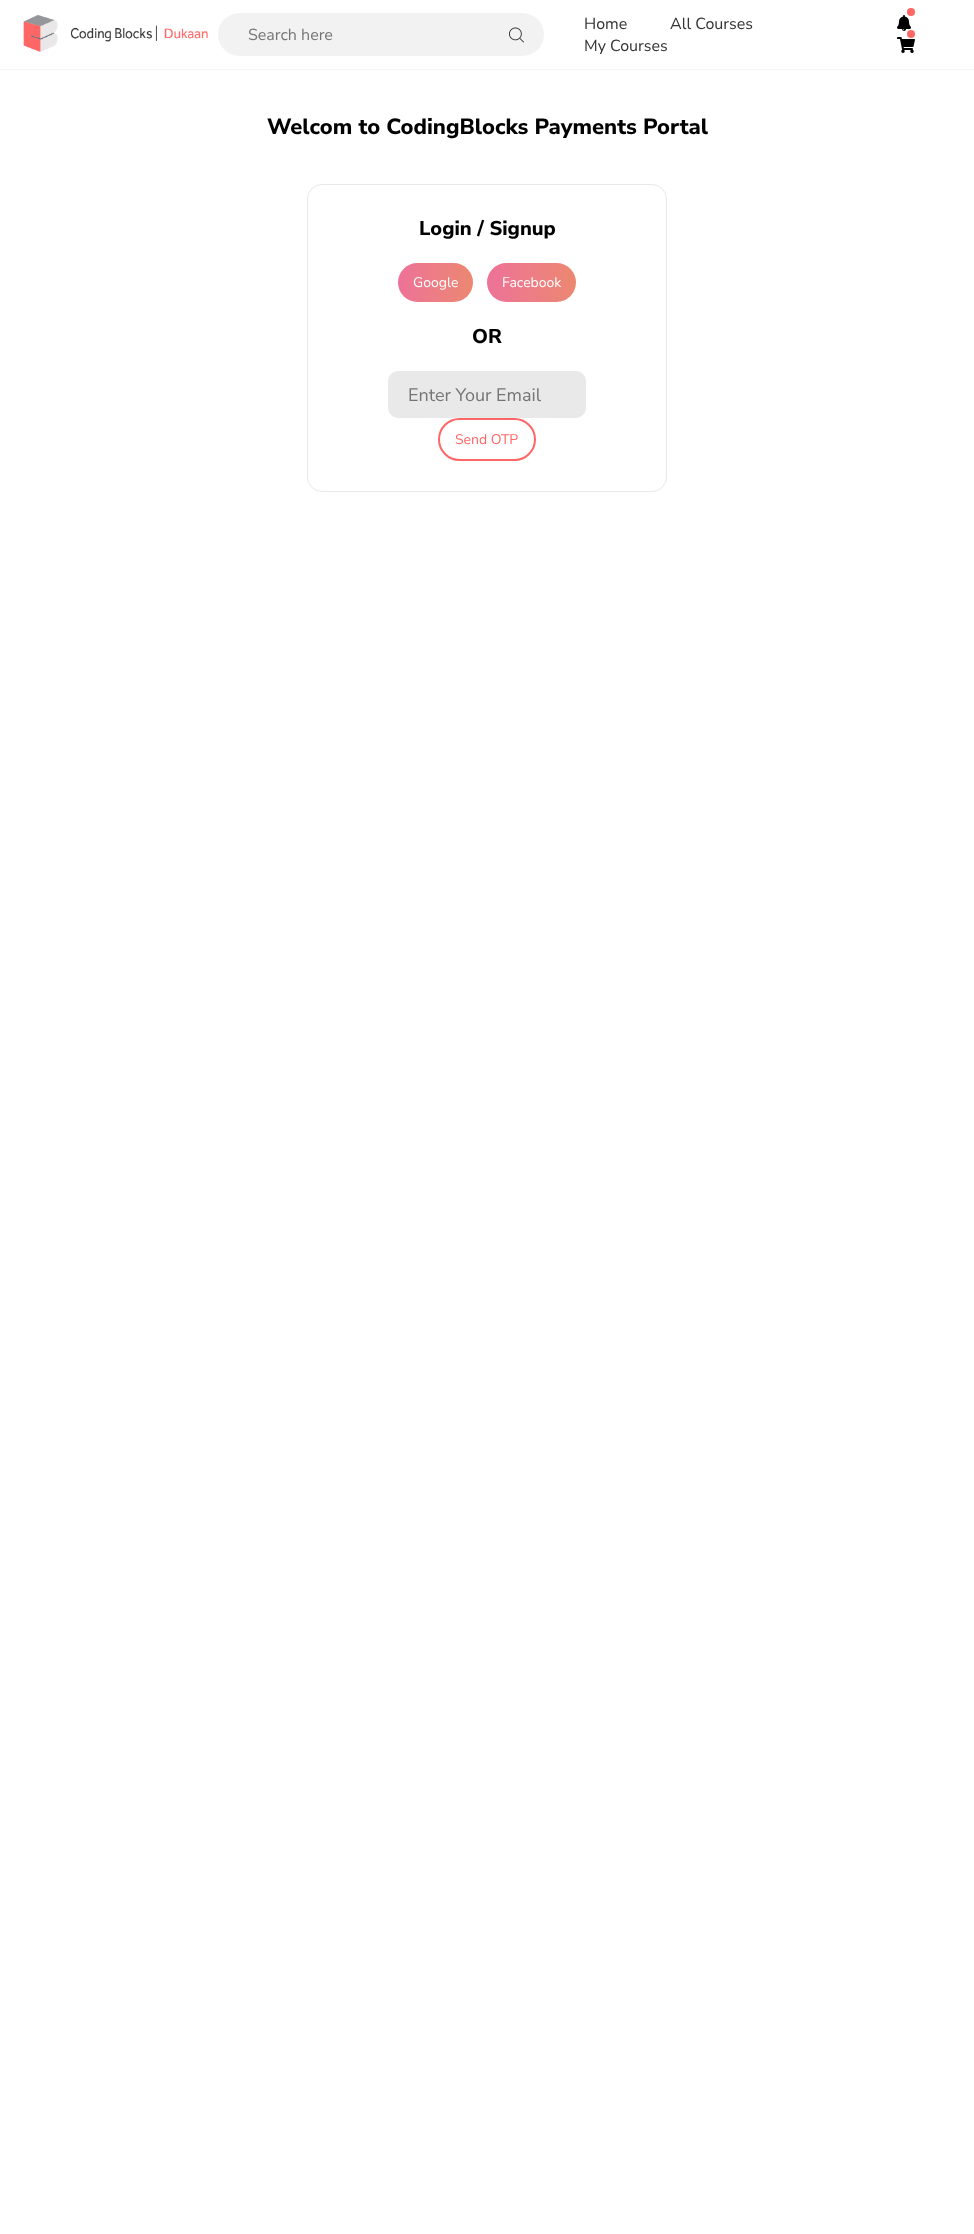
<svg xmlns="http://www.w3.org/2000/svg" width="974" height="2234">
<defs>
<linearGradient id="g1" gradientUnits="userSpaceOnUse" x1="398" y1="283" x2="473" y2="283"><stop offset="0" stop-color="#ed7298"/><stop offset="1" stop-color="#ec8871"/></linearGradient>
<linearGradient id="g2" gradientUnits="userSpaceOnUse" x1="487" y1="283" x2="576" y2="283"><stop offset="0" stop-color="#ed7298"/><stop offset="1" stop-color="#ec8871"/></linearGradient>
</defs>
<rect width="100%" height="100%" fill="#fff"/>
<rect y="69" width="974" height="1" fill="#f6f6f6"/>
<image x="23" y="14" width="185" height="38" href="media/1.png"/>
<rect x="218" y="13" width="326" height="43" rx="21.5" fill="#f2f2f2"/>
<text x="248" y="40" style="font-family:Nunito Sans;font-size:16px;fill:#757575">Search here</text>
<image x="509" y="27" width="15" height="16" href="media/2.png"/>
<text x="584" y="29" style="font-family:Nunito Sans;font-size:16px;fill:#333">Home</text>
<text x="670" y="29" style="font-family:Nunito Sans;font-size:16px;fill:#333">All Courses</text>
<text x="584" y="51" style="font-family:Nunito Sans;font-size:16px;fill:#333">My Courses</text>
<image x="897" y="15" width="14" height="16" href="media/3.png"/>
<circle cx="911" cy="12" r="4" fill="#f66"/>
<image x="897" y="37" width="18" height="16" href="media/4.png"/>
<circle cx="911" cy="34" r="4" fill="#f66"/>
<text x="267" y="134" style="font-family:Nunito Sans;font-size:22px;font-weight:800;fill:#000">Welcom to CodingBlocks Payments Portal</text>
<rect x="307.5" y="184.5" width="359" height="307" rx="14.5" fill="none" stroke="#e8e8e8"/>
<text x="419" y="235" style="font-family:Nunito Sans;font-size:20px;font-weight:800;fill:#000">Login / Signup</text>
<rect x="398" y="263" width="75" height="39" rx="19.5" fill="url(#g1)"/>
<text x="413" y="287" style="font-family:Nunito Sans;font-size:14px;fill:#fff">Google</text>
<rect x="487" y="263" width="89" height="39" rx="19.5" fill="url(#g2)"/>
<text x="502" y="287" style="font-family:Nunito Sans;font-size:14px;fill:#fff">Facebook</text>
<text x="472" y="343" style="font-family:Nunito Sans;font-size:20px;font-weight:800;fill:#000">OR</text>
<rect x="388" y="371" width="198" height="47" rx="10" fill="#e9e9e9"/>
<text x="408" y="401" style="font-family:Nunito Sans;font-size:18px;fill:#757575">Enter Your Email</text>
<rect x="439" y="419" width="96" height="41" rx="20.5" fill="none" stroke="#f66" stroke-width="2"/>
<text x="455" y="444" style="font-family:Nunito Sans;font-size:14px;fill:#f66">Send OTP</text>
</svg>
